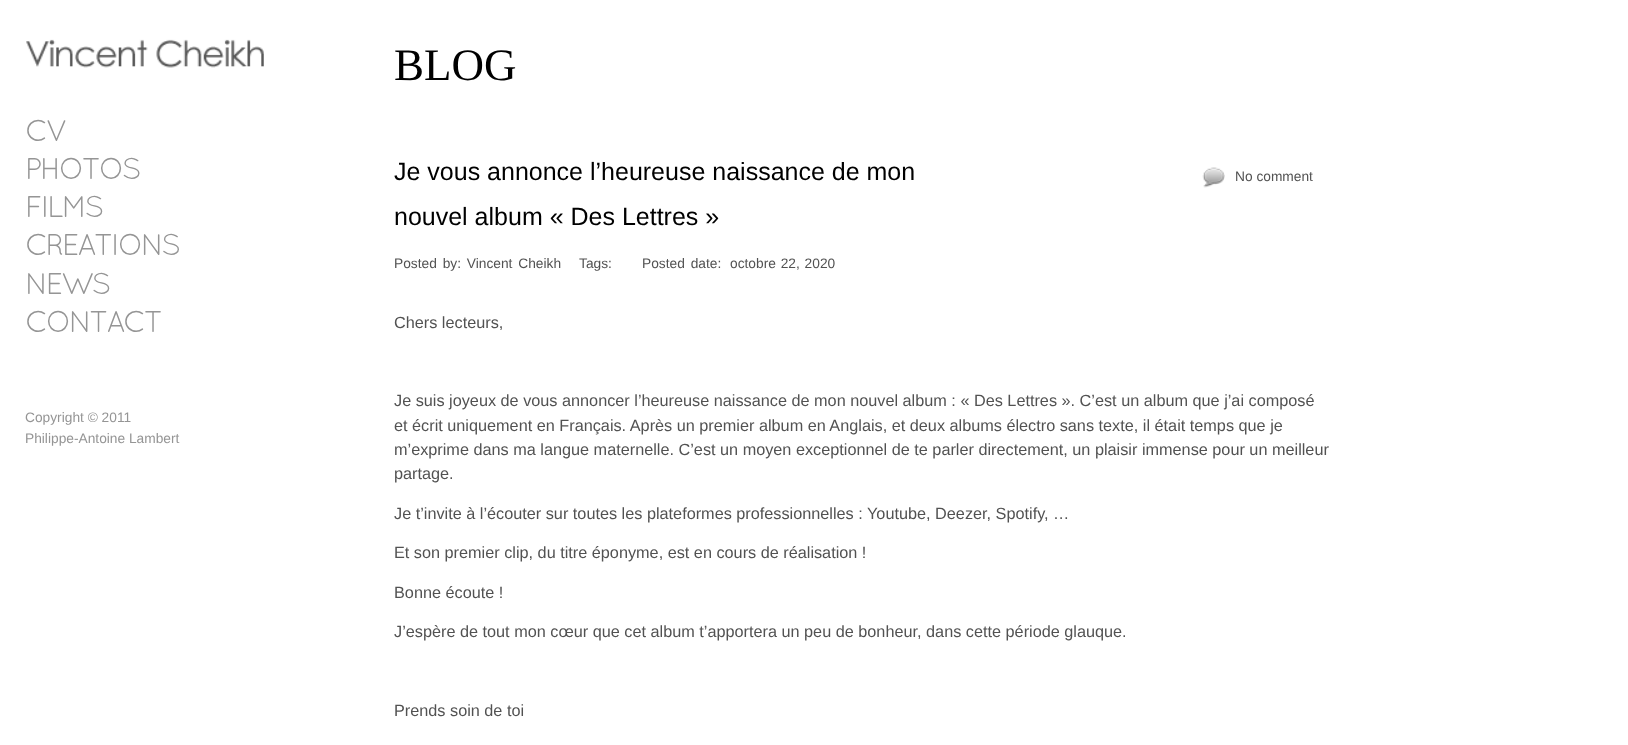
<svg xmlns="http://www.w3.org/2000/svg" width="1628" height="745">
<rect width="100%" height="100%" fill="#fff"/>
<image x="26" y="39" width="238" height="29" href="media/1.png"/>
<text x="25" y="141" style="font-family:Quicksand;font-size:30px;letter-spacing:-2.5px;fill:#959595">CV</text>
<text x="25" y="179" style="font-family:Quicksand;font-size:30px;letter-spacing:-2.5px;fill:#959595">PHOTOS</text>
<text x="25" y="217" style="font-family:Quicksand;font-size:30px;letter-spacing:-2.5px;fill:#959595">FILMS</text>
<text x="25" y="255" style="font-family:Quicksand;font-size:30px;letter-spacing:-2.5px;fill:#959595">CREATIONS</text>
<text x="25" y="294" style="font-family:Quicksand;font-size:30px;letter-spacing:-2.5px;fill:#959595">NEWS</text>
<text x="25" y="332" style="font-family:Quicksand;font-size:30px;letter-spacing:-2.5px;fill:#959595">CONTACT</text>
<text x="25" y="422" style="font-family:Liberation Sans;font-size:13.75px;fill:#959595">Copyright © 2011</text>
<text x="25" y="443" style="font-family:Liberation Sans;font-size:13.75px;fill:#959595">Philippe-Antoine Lambert</text>
<text x="394" y="80" style="font-family:Liberation Serif;font-size:45px;fill:#000">BLOG</text>
<text x="394" y="180" style="font-family:Liberation Sans;font-size:25px;fill:#000">Je vous annonce l’heureuse naissance de mon</text>
<text x="394" y="225" style="font-family:Liberation Sans;font-size:25px;fill:#000">nouvel album « Des Lettres »</text>
<text x="394" y="268" word-spacing="2" style="font-family:Liberation Sans;font-size:13.75px;fill:#525252">Posted by: Vincent Cheikh</text>
<text x="579" y="268" style="font-family:Liberation Sans;font-size:13.75px;fill:#525252">Tags:</text>
<text x="642" y="268" word-spacing="2" style="font-family:Liberation Sans;font-size:13.75px;fill:#525252">Posted date:</text>
<text x="730" y="268" word-spacing="1" style="font-family:Liberation Sans;font-size:13.75px;fill:#525252">octobre 22, 2020</text>
<image x="1202" y="167" width="23" height="21" href="media/2.png"/>
<text x="1235" y="181" style="font-family:Liberation Sans;font-size:13.75px;fill:#525252">No comment</text>
<text x="394" y="328" style="font-family:Liberation Sans;font-size:16.25px;fill:#525252">Chers lecteurs,</text>
<text x="394" y="406" style="font-family:Liberation Sans;font-size:16.25px;fill:#525252">Je suis joyeux de vous annoncer l’heureuse naissance de mon nouvel album : « Des Lettres ». C’est un album que j’ai composé</text>
<text x="394" y="431" style="font-family:Liberation Sans;font-size:16.25px;fill:#525252">et écrit uniquement en Français. Après un premier album en Anglais, et deux albums électro sans texte, il était temps que je</text>
<text x="394" y="455" style="font-family:Liberation Sans;font-size:16.25px;fill:#525252">m’exprime dans ma langue maternelle. C’est un moyen exceptionnel de te parler directement, un plaisir immense pour un meilleur</text>
<text x="394" y="479" style="font-family:Liberation Sans;font-size:16.25px;fill:#525252">partage.</text>
<text x="394" y="519" style="font-family:Liberation Sans;font-size:16.25px;fill:#525252">Je t’invite à l’écouter sur toutes les plateformes professionnelles : Youtube, Deezer, Spotify, …</text>
<text x="394" y="558" style="font-family:Liberation Sans;font-size:16.25px;fill:#525252">Et son premier clip, du titre éponyme, est en cours de réalisation !</text>
<text x="394" y="598" style="font-family:Liberation Sans;font-size:16.25px;fill:#525252">Bonne écoute !</text>
<text x="394" y="637" style="font-family:Liberation Sans;font-size:16.25px;fill:#525252">J’espère de tout mon cœur que cet album t’apportera un peu de bonheur, dans cette période glauque.</text>
<text x="394" y="716" style="font-family:Liberation Sans;font-size:16.25px;fill:#525252">Prends soin de toi</text>
</svg>
